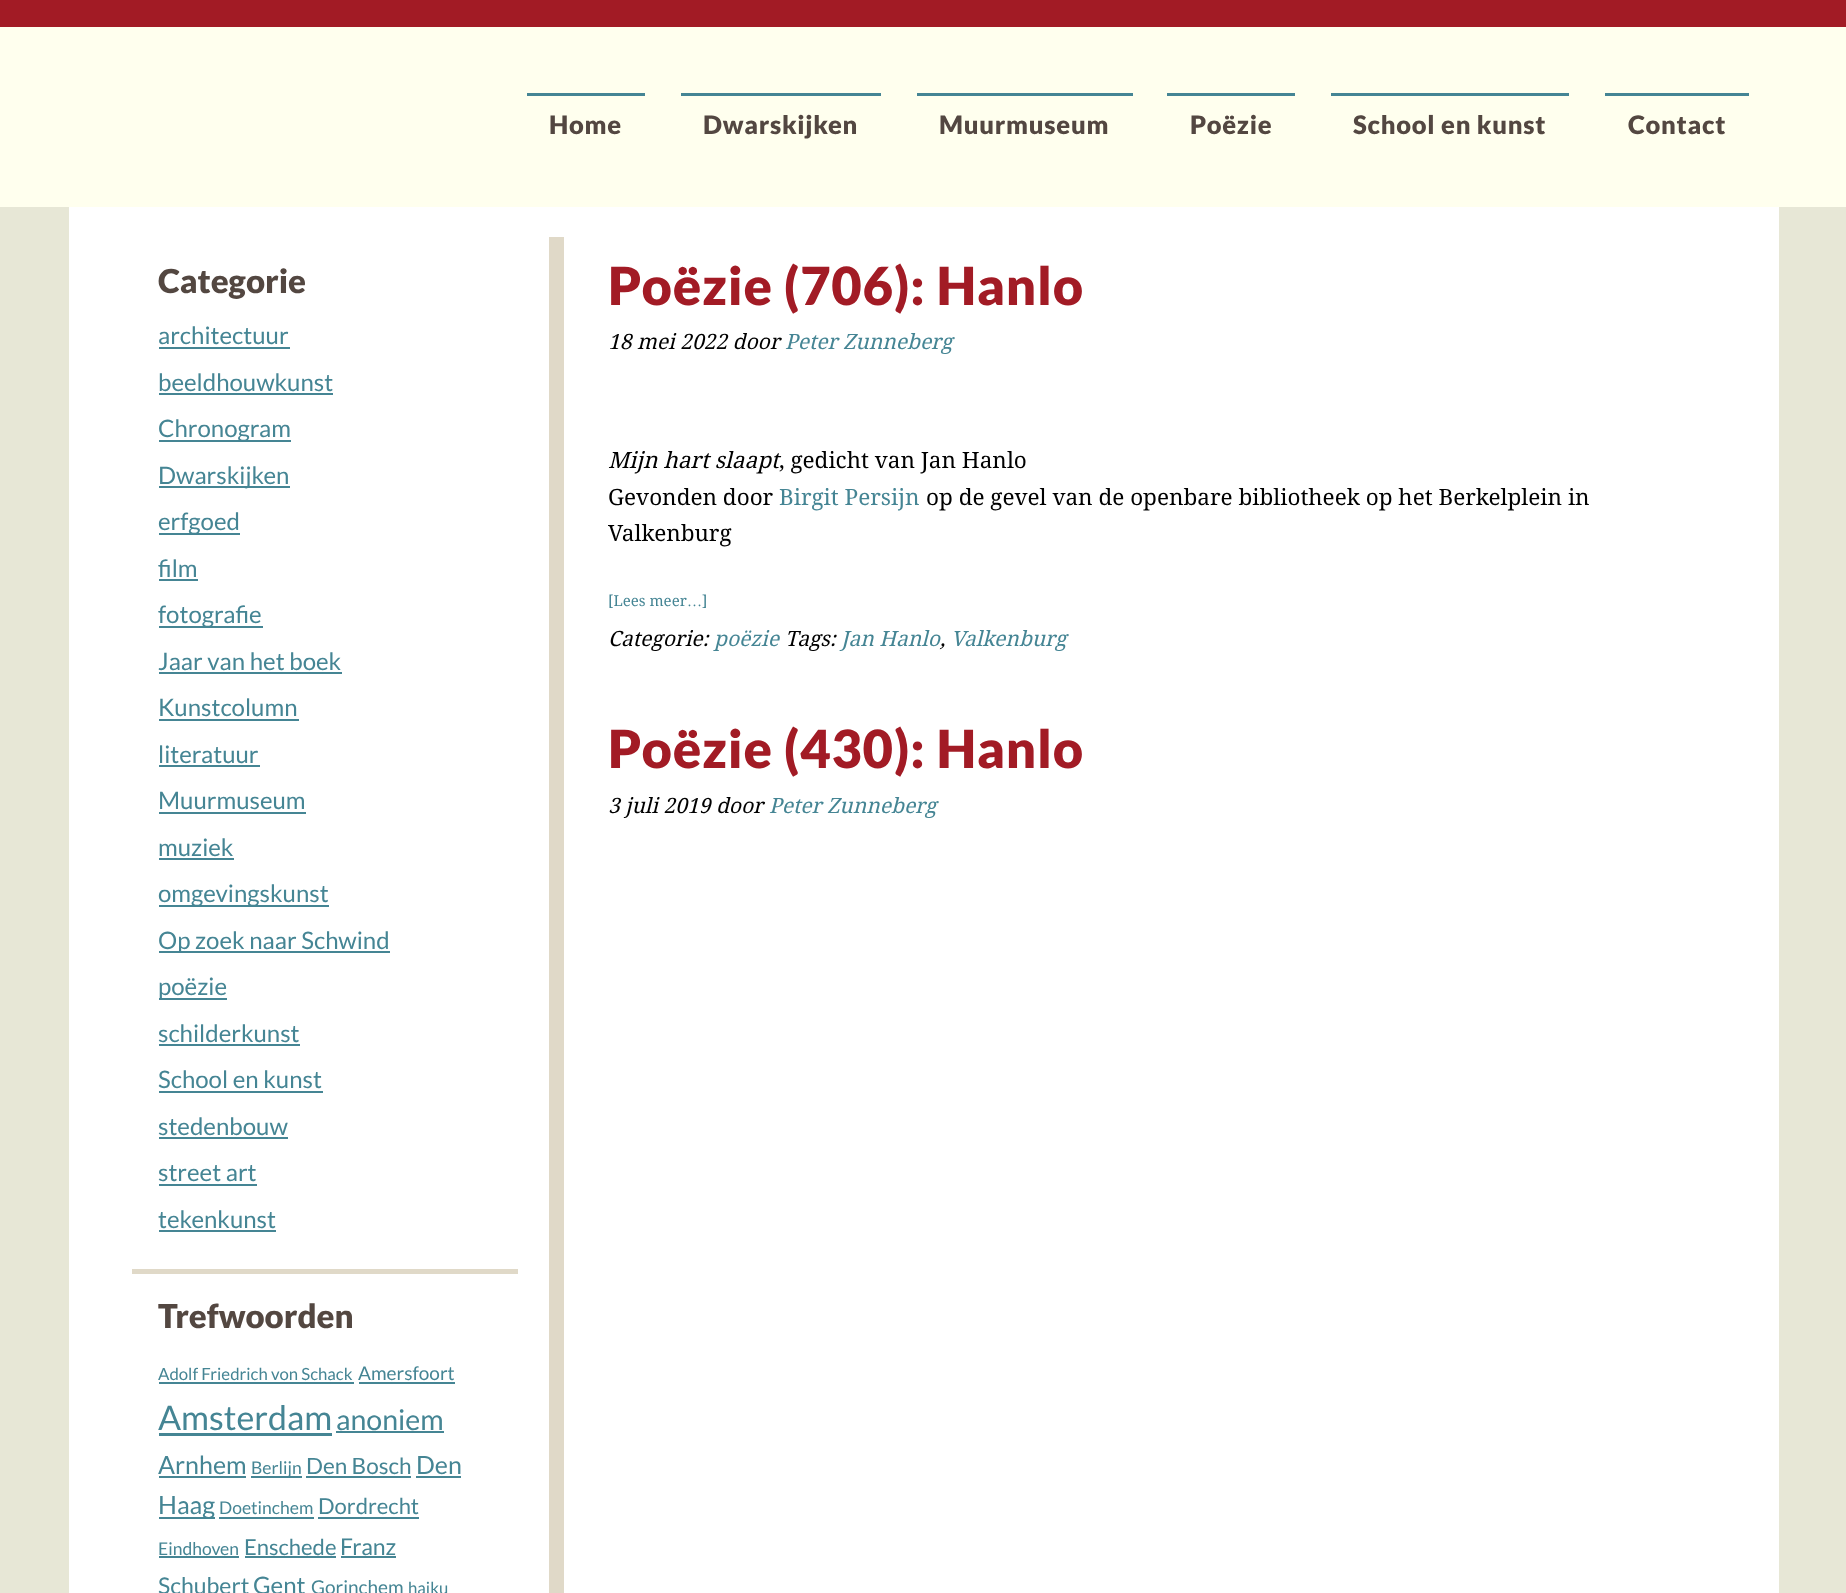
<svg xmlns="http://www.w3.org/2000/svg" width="1846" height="1593">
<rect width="100%" height="100%" fill="#e7e7d6"/>
<rect y="27" width="1846" height="180" fill="#ffe"/>
<rect width="1846" height="27" fill="#a21b25"/>
<rect x="527" y="93" width="118" height="3" fill="#458594"/>
<text x="549" y="134" style="font-family:Lato;font-size:25.5px;font-weight:900;letter-spacing:0.75px;fill:#534741">Home</text>
<rect x="681" y="93" width="200" height="3" fill="#458594"/>
<text x="703" y="134" style="font-family:Lato;font-size:25.5px;font-weight:900;letter-spacing:0.75px;fill:#534741">Dwarskijken</text>
<rect x="917" y="93" width="216" height="3" fill="#458594"/>
<text x="939" y="134" style="font-family:Lato;font-size:25.5px;font-weight:900;letter-spacing:0.75px;fill:#534741">Muurmuseum</text>
<rect x="1167" y="93" width="128" height="3" fill="#458594"/>
<text x="1190" y="134" style="font-family:Lato;font-size:25.5px;font-weight:900;letter-spacing:0.75px;fill:#534741">Poëzie</text>
<rect x="1331" y="93" width="238" height="3" fill="#458594"/>
<text x="1353" y="134" style="font-family:Lato;font-size:25.5px;font-weight:900;letter-spacing:0.75px;fill:#534741">School en kunst</text>
<rect x="1605" y="93" width="144" height="3" fill="#458594"/>
<text x="1628" y="134" style="font-family:Lato;font-size:25.5px;font-weight:900;letter-spacing:0.75px;fill:#534741">Contact</text>
<rect x="69" y="207" width="1710" height="1386" fill="#fff"/>
<rect x="549" y="237" width="15" height="1356" fill="#e0d9c8"/>
<rect x="132" y="1269" width="386" height="5" fill="#e0d9c8"/>
<text x="158" y="293" style="font-family:Lato;font-size:33px;font-weight:900;fill:#534741">Categorie</text>
<text x="158" y="344" style="font-family:Lato;font-size:24px;fill:#458594">architectuur</text>
<rect x="159" y="347" width="131" height="2" fill="#458594"/>
<text x="158" y="391" style="font-family:Lato;font-size:24px;fill:#458594">beeldhouwkunst</text>
<rect x="159" y="393" width="174" height="2" fill="#458594"/>
<rect x="159" y="440" width="132" height="2" fill="#458594"/>
<text x="158" y="437" style="font-family:Lato;font-size:24px;fill:#458594">Chronogram</text>
<rect x="159" y="486" width="131" height="2" fill="#458594"/>
<text x="158" y="484" style="font-family:Lato;font-size:24px;fill:#458594">Dwarskijken</text>
<rect x="159" y="533" width="81" height="2" fill="#458594"/>
<text x="158" y="530" style="font-family:Lato;font-size:24px;fill:#458594">erfgoed</text>
<text x="158" y="577" style="font-family:Lato;font-size:24px;fill:#458594">film</text>
<rect x="159" y="579" width="39" height="2" fill="#458594"/>
<rect x="159" y="626" width="104" height="2" fill="#458594"/>
<text x="158" y="623" style="font-family:Lato;font-size:24px;fill:#458594">fotografie</text>
<text x="158" y="670" style="font-family:Lato;font-size:24px;fill:#458594">Jaar van het boek</text>
<rect x="159" y="672" width="183" height="2" fill="#458594"/>
<text x="158" y="716" style="font-family:Lato;font-size:24px;fill:#458594">Kunstcolumn</text>
<rect x="159" y="719" width="140" height="2" fill="#458594"/>
<text x="158" y="763" style="font-family:Lato;font-size:24px;fill:#458594">literatuur</text>
<rect x="159" y="765" width="101" height="2" fill="#458594"/>
<text x="158" y="809" style="font-family:Lato;font-size:24px;fill:#458594">Muurmuseum</text>
<rect x="159" y="812" width="147" height="2" fill="#458594"/>
<text x="158" y="856" style="font-family:Lato;font-size:24px;fill:#458594">muziek</text>
<rect x="159" y="858" width="75" height="2" fill="#458594"/>
<rect x="159" y="905" width="170" height="2" fill="#458594"/>
<text x="158" y="902" style="font-family:Lato;font-size:24px;fill:#458594">omgevingskunst</text>
<rect x="159" y="951" width="231" height="2" fill="#458594"/>
<text x="158" y="949" style="font-family:Lato;font-size:24px;fill:#458594">Op zoek naar Schwind</text>
<rect x="159" y="998" width="68" height="2" fill="#458594"/>
<text x="158" y="995" style="font-family:Lato;font-size:24px;fill:#458594">poëzie</text>
<text x="158" y="1042" style="font-family:Lato;font-size:24px;fill:#458594">schilderkunst</text>
<rect x="159" y="1044" width="141" height="2" fill="#458594"/>
<text x="158" y="1088" style="font-family:Lato;font-size:24px;fill:#458594">School en kunst</text>
<rect x="159" y="1091" width="164" height="2" fill="#458594"/>
<text x="158" y="1135" style="font-family:Lato;font-size:24px;fill:#458594">stedenbouw</text>
<rect x="159" y="1137" width="129" height="2" fill="#458594"/>
<text x="158" y="1181" style="font-family:Lato;font-size:24px;fill:#458594">street art</text>
<rect x="159" y="1184" width="98" height="2" fill="#458594"/>
<text x="158" y="1228" style="font-family:Lato;font-size:24px;fill:#458594">tekenkunst</text>
<rect x="159" y="1230" width="117" height="2" fill="#458594"/>
<text x="158" y="1328" style="font-family:Lato;font-size:33px;font-weight:900;fill:#534741">Trefwoorden</text>
<text x="158" y="1380" style="font-family:Lato;font-size:16.8px;fill:#458594">Adolf Friedrich von Schack</text>
<rect x="159" y="1382" width="195" height="2" fill="#458594"/>
<text x="358" y="1380" style="font-family:Lato;font-size:19px;fill:#458594">Amersfoort</text>
<rect x="359" y="1382" width="96" height="2" fill="#458594"/>
<text x="158" y="1430" style="font-family:Lato;font-size:34px;fill:#458594">Amsterdam</text>
<rect x="159" y="1433" width="173" height="3" fill="#458594"/>
<text x="336" y="1430" style="font-family:Lato;font-size:28.5px;fill:#458594">anoniem</text>
<rect x="336" y="1431" width="108" height="2" fill="#458594"/>
<text x="158" y="1474" style="font-family:Lato;font-size:25px;fill:#458594">Arnhem</text>
<rect x="159" y="1476" width="87" height="2" fill="#458594"/>
<rect x="251" y="1476" width="51" height="2" fill="#458594"/>
<text x="251" y="1474" style="font-family:Lato;font-size:17.5px;fill:#458594">Berlijn</text>
<text x="306" y="1474" style="font-family:Lato;font-size:22.5px;fill:#458594">Den Bosch</text>
<rect x="306" y="1476" width="105" height="2" fill="#458594"/>
<text x="416" y="1474" style="font-family:Lato;font-size:25px;fill:#458594">Den</text>
<rect x="416" y="1476" width="45" height="2" fill="#458594"/>
<rect x="159" y="1517" width="56" height="2" fill="#458594"/>
<text x="158" y="1514" style="font-family:Lato;font-size:25px;fill:#458594">Haag</text>
<text x="219" y="1514" style="font-family:Lato;font-size:17.5px;fill:#458594">Doetinchem</text>
<rect x="219" y="1517" width="95" height="2" fill="#458594"/>
<text x="318" y="1514" style="font-family:Lato;font-size:22px;fill:#458594">Dordrecht</text>
<rect x="318" y="1517" width="101" height="2" fill="#458594"/>
<text x="158" y="1555" style="font-family:Lato;font-size:17.5px;fill:#458594">Eindhoven</text>
<rect x="159" y="1556" width="80" height="2" fill="#458594"/>
<text x="244" y="1555" style="font-family:Lato;font-size:22px;fill:#458594">Enschede</text>
<rect x="245" y="1556" width="91" height="2" fill="#458594"/>
<text x="340" y="1555" style="font-family:Lato;font-size:23px;fill:#458594">Franz</text>
<rect x="341" y="1556" width="55" height="2" fill="#458594"/>
<text x="158" y="1594" style="font-family:Lato;font-size:23px;fill:#458594">Schubert</text>
<text x="253" y="1594" style="font-family:Lato;font-size:24px;fill:#458594">Gent</text>
<text x="311" y="1594" style="font-family:Lato;font-size:19px;fill:#458594">Gorinchem</text>
<text x="408" y="1594" style="font-family:Lato;font-size:16.8px;fill:#458594">haiku</text>
<text x="608" y="305" style="font-family:Lato;font-size:52.5px;font-weight:900;letter-spacing:0.75px;fill:#a21b25">Poëzie (706): Hanlo</text>
<text x="608" y="349" style="font-family:Droid Serif;font-size:21px;font-style:italic;fill:#000">18 mei 2022 door</text>
<text x="785" y="349" style="font-family:Droid Serif;font-size:21px;font-style:italic;fill:#458594">Peter Zunneberg</text>
<text x="608" y="468" style="font-family:Droid Serif;font-size:22.5px;font-style:italic;fill:#000">Mijn hart slaapt</text>
<text x="779" y="468" style="font-family:Droid Serif;font-size:22.5px;fill:#000">, gedicht van Jan Hanlo</text>
<text x="608" y="505" style="font-family:Droid Serif;font-size:22.5px;fill:#000">Gevonden door</text>
<text x="779" y="505" style="font-family:Droid Serif;font-size:22.5px;fill:#458594">Birgit Persijn</text>
<text x="926" y="505" style="font-family:Droid Serif;font-size:22.5px;fill:#000">op de gevel van de openbare bibliotheek op het Berkelplein in</text>
<text x="608" y="541" style="font-family:Droid Serif;font-size:22.5px;fill:#000">Valkenburg</text>
<text x="608" y="606" style="font-family:Droid Serif;font-size:15px;fill:#458594">[Lees meer</text>
<text x="687" y="606" style="font-family:Liberation Serif;font-size:15px;fill:#458594">…</text>
<text x="702" y="606" style="font-family:Droid Serif;font-size:15px;fill:#458594">]</text>
<text x="608" y="646" style="font-family:Droid Serif;font-size:21px;font-style:italic;fill:#000">Categorie:</text>
<text x="714" y="646" style="font-family:Droid Serif;font-size:21px;font-style:italic;fill:#458594">poëzie</text>
<text x="785" y="646" style="font-family:Droid Serif;font-size:21px;font-style:italic;fill:#000">Tags:</text>
<text x="841" y="646" style="font-family:Droid Serif;font-size:21px;font-style:italic;fill:#458594">Jan Hanlo</text>
<text x="940" y="646" style="font-family:Droid Serif;font-size:21px;font-style:italic;fill:#000">,</text>
<text x="951" y="646" style="font-family:Droid Serif;font-size:21px;font-style:italic;fill:#458594">Valkenburg</text>
<text x="608" y="768" style="font-family:Lato;font-size:52.5px;font-weight:900;letter-spacing:0.75px;fill:#a21b25">Poëzie (430): Hanlo</text>
<text x="608" y="813" style="font-family:Droid Serif;font-size:21px;font-style:italic;fill:#000">3 juli 2019 door</text>
<text x="769" y="813" style="font-family:Droid Serif;font-size:21px;font-style:italic;fill:#458594">Peter Zunneberg</text>
</svg>
